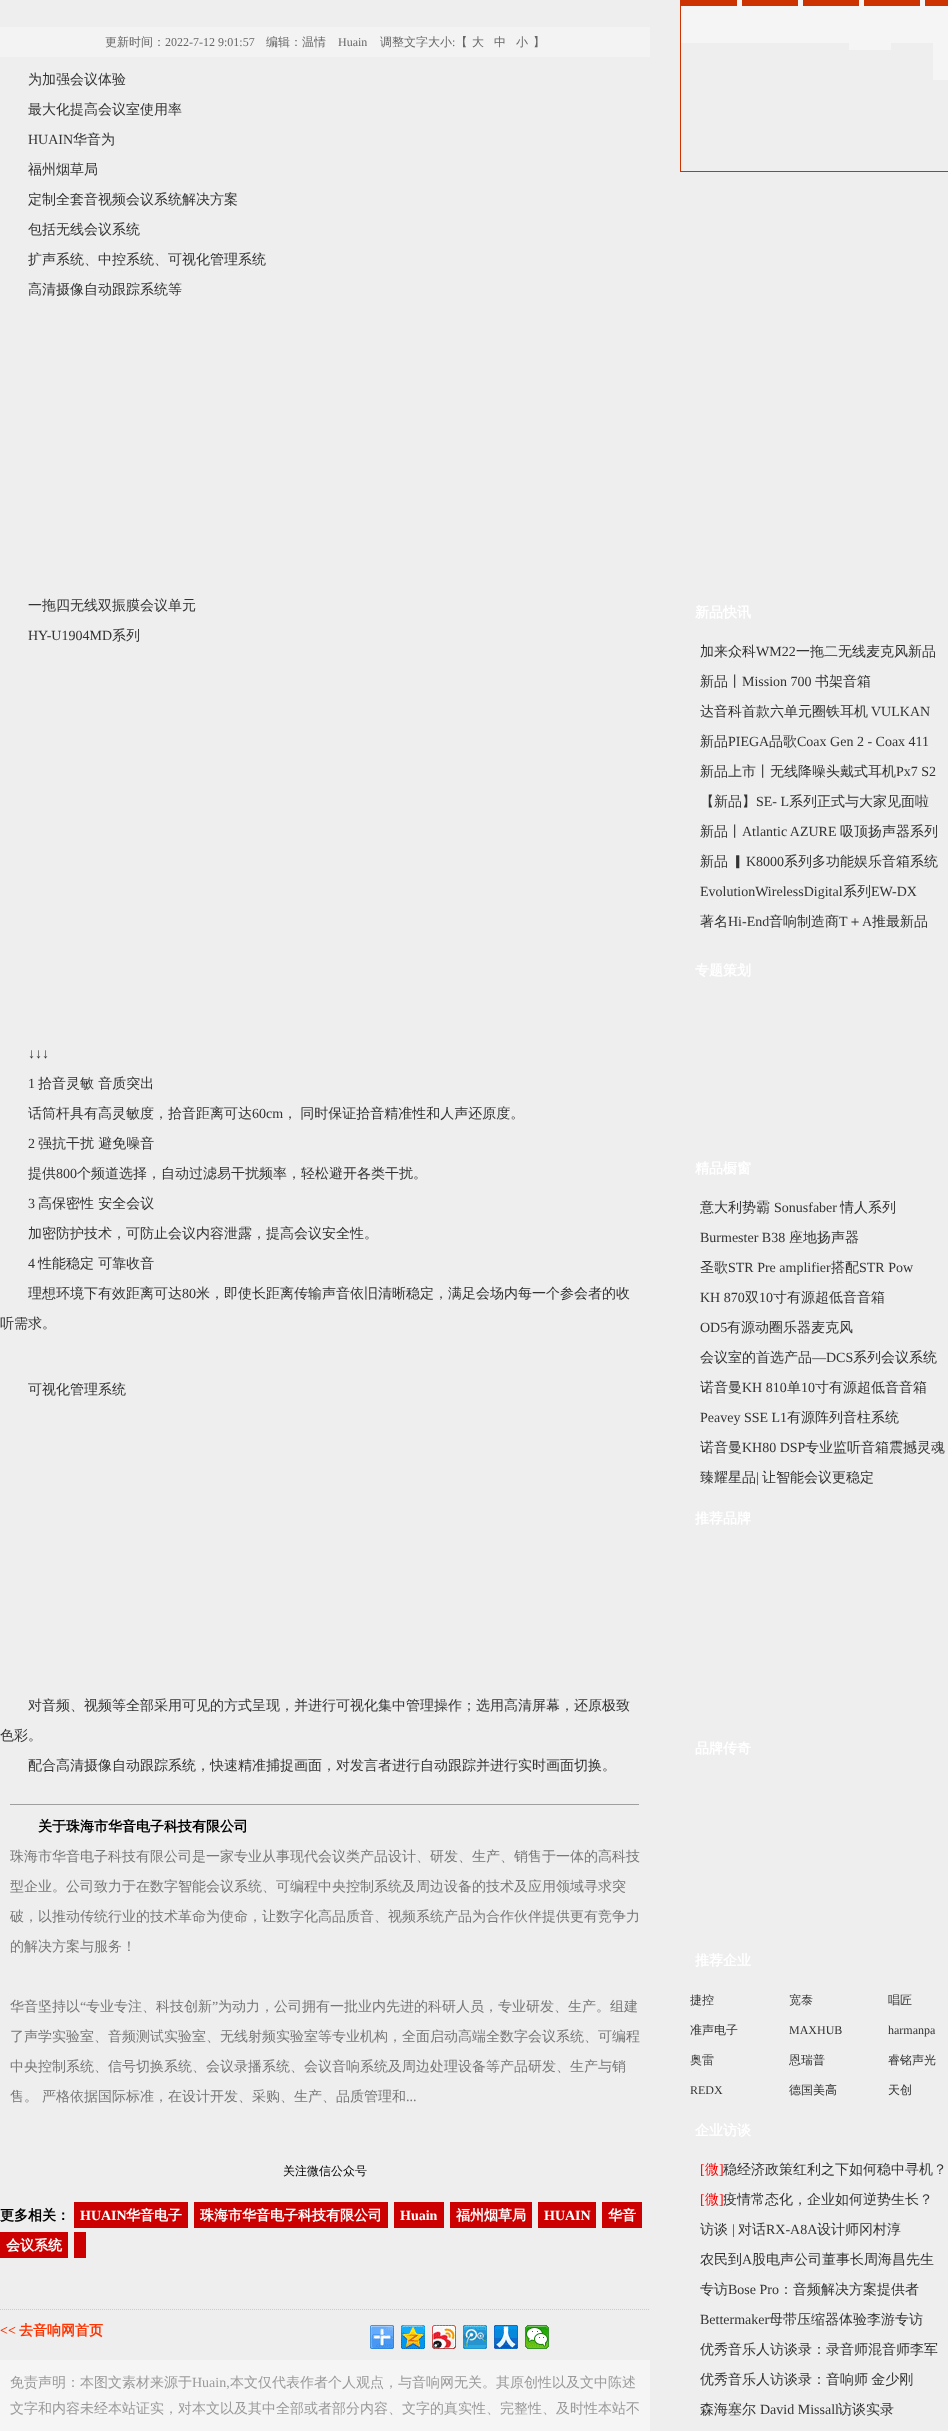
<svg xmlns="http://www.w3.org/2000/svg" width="948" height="2431">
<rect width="100%" height="100%" fill="#eee"/>
<rect y="27" width="650" height="30" fill="#f3f3f3"/>
<text x="105" y="46" style="font-family:WenQuanYi Zen Hei;font-size:12px;font-weight:500;fill:#676767">更新时间：</text>
<text x="165" y="46" style="font-family:Liberation Serif;font-size:12px;fill:#676767">2022-7-12 9:01:57</text>
<text x="266" y="46" style="font-family:WenQuanYi Zen Hei;font-size:12px;font-weight:500;fill:#676767">编辑：温情</text>
<text x="338" y="46" style="font-family:Liberation Serif;font-size:12px;fill:#676767">Huain</text>
<text x="380" y="46" style="font-family:WenQuanYi Zen Hei;font-size:12px;font-weight:500;fill:#676767">调整文字大小 【</text>
<text x="472" y="46" style="font-family:WenQuanYi Zen Hei;font-size:12px;font-weight:500;fill:#676767">大</text>
<text x="494" y="46" style="font-family:WenQuanYi Zen Hei;font-size:12px;font-weight:500;fill:#676767">中</text>
<text x="516" y="46" style="font-family:WenQuanYi Zen Hei;font-size:12px;font-weight:500;fill:#676767">小</text>
<text x="533" y="46" style="font-family:WenQuanYi Zen Hei;font-size:12px;font-weight:500;fill:#676767">】</text>
<text x="452" y="46" style="font-family:Liberation Serif;font-size:12px;fill:#676767">:</text>
<text x="28" y="84" style="font-family:WenQuanYi Zen Hei;font-size:14px;font-weight:500;fill:#333">为加强会议体验</text>
<text x="28" y="114" style="font-family:WenQuanYi Zen Hei;font-size:14px;font-weight:500;fill:#333">最大化提高会议室使用率</text>
<text x="28" y="144" style="font-family:Liberation Serif;font-size:14px;fill:#333">HUAIN</text>
<text x="73" y="144" style="font-family:WenQuanYi Zen Hei;font-size:14px;font-weight:500;fill:#333">华音为</text>
<text x="28" y="174" style="font-family:WenQuanYi Zen Hei;font-size:14px;font-weight:500;fill:#333">福州烟草局</text>
<text x="28" y="204" style="font-family:WenQuanYi Zen Hei;font-size:14px;font-weight:500;fill:#333">定制全套音视频会议系统解决方案</text>
<text x="28" y="234" style="font-family:WenQuanYi Zen Hei;font-size:14px;font-weight:500;fill:#333">包括无线会议系统</text>
<text x="28" y="264" style="font-family:WenQuanYi Zen Hei;font-size:14px;font-weight:500;fill:#333">扩声系统、中控系统、可视化管理系统</text>
<text x="28" y="294" style="font-family:WenQuanYi Zen Hei;font-size:14px;font-weight:500;fill:#333">高清摄像自动跟踪系统等</text>
<text x="28" y="610" style="font-family:WenQuanYi Zen Hei;font-size:14px;font-weight:500;fill:#333">一拖四无线双振膜会议单元</text>
<text x="28" y="640" style="font-family:Liberation Serif;font-size:14px;fill:#333">HY-U1904MD</text>
<text x="112" y="640" style="font-family:WenQuanYi Zen Hei;font-size:14px;font-weight:500;fill:#333">系列</text>
<text x="28" y="1058" style="font-family:Liberation Serif;font-size:14px;fill:#333">↓↓↓</text>
<text x="28" y="1088" style="font-family:Liberation Serif;font-size:14px;fill:#333">1</text>
<text x="38" y="1088" style="font-family:WenQuanYi Zen Hei;font-size:14px;font-weight:500;fill:#333">拾音灵敏 音质突出</text>
<text x="28" y="1118" style="font-family:WenQuanYi Zen Hei;font-size:14px;font-weight:500;fill:#333">话筒杆具有高灵敏度，拾音距离可达</text>
<text x="252" y="1118" style="font-family:Liberation Serif;font-size:14px;fill:#333">60cm</text>
<text x="283" y="1118" word-spacing="-1" style="font-family:WenQuanYi Zen Hei;font-size:14px;font-weight:500;fill:#333">， 同时保证拾音精准性和人声还原度。</text>
<text x="28" y="1148" style="font-family:Liberation Serif;font-size:14px;fill:#333">2</text>
<text x="38" y="1148" style="font-family:WenQuanYi Zen Hei;font-size:14px;font-weight:500;fill:#333">强抗干扰 避免噪音</text>
<text x="28" y="1178" style="font-family:WenQuanYi Zen Hei;font-size:14px;font-weight:500;fill:#333">提供</text>
<text x="56" y="1178" style="font-family:Liberation Serif;font-size:14px;fill:#333">800</text>
<text x="77" y="1178" style="font-family:WenQuanYi Zen Hei;font-size:14px;font-weight:500;fill:#333">个频道选择，自动过滤易干扰频率，轻松避开各类干扰。</text>
<text x="28" y="1208" style="font-family:Liberation Serif;font-size:14px;fill:#333">3</text>
<text x="38" y="1208" style="font-family:WenQuanYi Zen Hei;font-size:14px;font-weight:500;fill:#333">高保密性 安全会议</text>
<text x="28" y="1238" style="font-family:WenQuanYi Zen Hei;font-size:14px;font-weight:500;fill:#333">加密防护技术，可防止会议内容泄露，提高会议安全性。</text>
<text x="28" y="1268" style="font-family:Liberation Serif;font-size:14px;fill:#333">4</text>
<text x="38" y="1268" style="font-family:WenQuanYi Zen Hei;font-size:14px;font-weight:500;fill:#333">性能稳定 可靠收音</text>
<text x="28" y="1298" style="font-family:WenQuanYi Zen Hei;font-size:14px;font-weight:500;fill:#333">理想环境下有效距离可达</text>
<text x="182" y="1298" style="font-family:Liberation Serif;font-size:14px;fill:#333">80</text>
<text x="196" y="1298" style="font-family:WenQuanYi Zen Hei;font-size:14px;font-weight:500;fill:#333">米，即使长距离传输声音依旧清晰稳定，满足会场内每一个参会者的收</text>
<text x="0" y="1328" style="font-family:WenQuanYi Zen Hei;font-size:14px;font-weight:500;fill:#333">听需求。</text>
<text x="28" y="1394" style="font-family:WenQuanYi Zen Hei;font-size:14px;font-weight:500;fill:#333">可视化管理系统</text>
<text x="28" y="1710" style="font-family:WenQuanYi Zen Hei;font-size:14px;font-weight:500;fill:#333">对音频、视频等全部采用可见的方式呈现，并进行可视化集中管理操作；选用高清屏幕，还原极致</text>
<text x="0" y="1740" style="font-family:WenQuanYi Zen Hei;font-size:14px;font-weight:500;fill:#333">色彩。</text>
<text x="28" y="1770" style="font-family:WenQuanYi Zen Hei;font-size:14px;font-weight:500;fill:#333">配合高清摄像自动跟踪系统，快速精准捕捉画面，对发言者进行自动跟踪并进行实时画面切换。</text>
<rect x="10" y="1804" width="630" height="1" fill="#9f9f9f"/>
<rect x="639" y="1804" width="1" height="1" fill="#eee"/>
<text x="38" y="1831" style="font-family:WenQuanYi Zen Hei;font-size:14px;font-weight:bold;fill:#000">关于珠海市华音电子科技有限公司</text>
<text x="10" y="1861" style="font-family:WenQuanYi Zen Hei;font-size:14px;font-weight:500;fill:#777">珠海市华音电子科技有限公司是一家专业从事现代会议类产品设计、研发、生产、销售于一体的高科技</text>
<text x="10" y="1891" style="font-family:WenQuanYi Zen Hei;font-size:14px;font-weight:500;fill:#777">型企业。公司致力于在数字智能会议系统、可编程中央控制系统及周边设备的技术及应用领域寻求突</text>
<text x="10" y="1921" style="font-family:WenQuanYi Zen Hei;font-size:14px;font-weight:500;fill:#777">破，以推动传统行业的技术革命为使命，让数字化高品质音、视频系统产品为合作伙伴提供更有竞争力</text>
<text x="10" y="1951" style="font-family:WenQuanYi Zen Hei;font-size:14px;font-weight:500;fill:#777">的解决方案与服务！</text>
<text x="10" y="2011" style="font-family:WenQuanYi Zen Hei;font-size:14px;font-weight:500;fill:#777">华音坚持以</text>
<text x="80" y="2011" style="font-family:Liberation Serif;font-size:14px;fill:#777">“</text>
<text x="86" y="2011" style="font-family:WenQuanYi Zen Hei;font-size:14px;font-weight:500;fill:#777">专业专注、科技创新</text>
<text x="212" y="2011" style="font-family:Liberation Serif;font-size:14px;fill:#777">”</text>
<text x="218" y="2011" style="font-family:WenQuanYi Zen Hei;font-size:14px;font-weight:500;fill:#777">为动力，公司拥有一批业内先进的科研人员，专业研发、生产。组建</text>
<text x="10" y="2041" style="font-family:WenQuanYi Zen Hei;font-size:14px;font-weight:500;fill:#777">了声学实验室、音频测试实验室、无线射频实验室等专业机构，全面启动高端全数字会议系统、可编程</text>
<text x="10" y="2071" style="font-family:WenQuanYi Zen Hei;font-size:14px;font-weight:500;fill:#777">中央控制系统、信号切换系统、会议录播系统、会议音响系统及周边处理设备等产品研发、生产与销</text>
<text x="10" y="2101" style="font-family:WenQuanYi Zen Hei;font-size:14px;font-weight:500;fill:#777">售。</text>
<text x="42" y="2101" style="font-family:WenQuanYi Zen Hei;font-size:14px;font-weight:500;fill:#777">严格依据国际标准，在设计开发、采购、生产、品质管理和</text>
<text x="406" y="2101" style="font-family:Liberation Serif;font-size:14px;fill:#777">...</text>
<text x="283" y="2175" style="font-family:WenQuanYi Zen Hei;font-size:12px;font-weight:500;fill:#000">关注微信公众号</text>
<text x="0" y="2220" style="font-family:WenQuanYi Zen Hei;font-size:14px;font-weight:bold;fill:#000">更多相关：</text>
<rect x="74" y="2202" width="114" height="26" fill="#c00"/>
<text x="80" y="2220" style="font-family:Liberation Serif;font-size:14px;font-weight:bold;fill:#fff">HUAIN</text>
<text x="126" y="2220" style="font-family:WenQuanYi Zen Hei;font-size:14px;font-weight:bold;fill:#fff">华音电子</text>
<rect x="194" y="2202" width="194" height="26" fill="#c00"/>
<text x="200" y="2220" style="font-family:WenQuanYi Zen Hei;font-size:14px;font-weight:bold;fill:#fff">珠海市华音电子科技有限公司</text>
<rect x="394" y="2202" width="50" height="26" fill="#c00"/>
<text x="400" y="2220" style="font-family:Liberation Serif;font-size:14px;font-weight:bold;fill:#fff">Huain</text>
<rect x="450" y="2202" width="82" height="26" fill="#c00"/>
<text x="456" y="2220" style="font-family:WenQuanYi Zen Hei;font-size:14px;font-weight:bold;fill:#fff">福州烟草局</text>
<rect x="538" y="2202" width="58" height="26" fill="#c00"/>
<text x="544" y="2220" style="font-family:Liberation Serif;font-size:14px;font-weight:bold;fill:#fff">HUAIN</text>
<rect x="602" y="2202" width="40" height="26" fill="#c00"/>
<text x="608" y="2220" style="font-family:WenQuanYi Zen Hei;font-size:14px;font-weight:bold;fill:#fff">华音</text>
<rect y="2232" width="68" height="26" fill="#c00"/>
<text x="6" y="2250" style="font-family:WenQuanYi Zen Hei;font-size:14px;font-weight:bold;fill:#fff">会议系统</text>
<rect x="74" y="2232" width="12" height="26" fill="#c00"/>
<path d="M0 2309.5h370" fill="none" stroke="#ccc" stroke-dasharray="1 1"/>
<text x="0" y="2335" style="font-family:Liberation Serif;font-size:14px;font-weight:bold;fill:#f30">&lt;&lt;</text>
<text x="19" y="2335" style="font-family:WenQuanYi Zen Hei;font-size:14px;font-weight:bold;fill:#f30">去音响网首页</text>
<path d="M370 2309.5h280" fill="none" stroke="#ccc" stroke-dasharray="1 1"/>
<image x="370" y="2325" width="24" height="24" href="media/1.png"/>
<image x="401" y="2325" width="24" height="24" href="media/2.png"/>
<image x="432" y="2325" width="24" height="24" href="media/3.png"/>
<image x="463" y="2325" width="24" height="24" href="media/4.png"/>
<image x="494" y="2325" width="24" height="24" href="media/5.png"/>
<image x="525" y="2325" width="24" height="24" href="media/6.png"/>
<rect y="2360" width="650" height="71" fill="#f5f5f5"/>
<text x="10" y="2387" style="font-family:WenQuanYi Zen Hei;font-size:14px;font-weight:500;fill:#999">免责声明：本图文素材来源于</text>
<text x="192" y="2387" style="font-family:Liberation Serif;font-size:14px;fill:#999">Huain,</text>
<text x="230" y="2387" style="font-family:WenQuanYi Zen Hei;font-size:14px;font-weight:500;fill:#999">本文仅代表作者个人观点，与音响网无关。其原创性以及文中陈述</text>
<text x="10" y="2413" style="font-family:WenQuanYi Zen Hei;font-size:14px;font-weight:500;fill:#999">文字和内容未经本站证实，对本文以及其中全部或者部分内容、文字的真实性、完整性、及时性本站不</text>
<rect x="680.5" y="-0.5" width="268" height="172" fill="none" stroke="#c30"/>
<rect x="681" width="56" height="6" fill="#c30"/>
<rect x="737" width="5" height="6" fill="#f5f5f5"/>
<rect x="681" y="6" width="267" height="10" fill="#f5f5f5"/>
<rect x="742" width="56" height="6" fill="#c30"/>
<rect x="798" width="5" height="6" fill="#f5f5f5"/>
<rect x="803" width="56" height="6" fill="#c30"/>
<rect x="859" width="5" height="6" fill="#f5f5f5"/>
<rect x="864" width="56" height="6" fill="#c30"/>
<rect x="920" width="5" height="6" fill="#f5f5f5"/>
<rect x="925" width="23" height="6" fill="#c30"/>
<rect x="681" y="16" width="168" height="27" fill="#f5f5f5"/>
<rect x="849" y="16" width="42" height="34" fill="#f5f5f5"/>
<rect x="891" y="16" width="42" height="27" fill="#f5f5f5"/>
<rect x="933" y="16" width="15" height="64" fill="#f5f5f5"/>
<text x="695" y="617" style="font-family:WenQuanYi Zen Hei;font-size:14px;font-weight:bold;fill:#fff">新品快讯</text>
<text x="700" y="656" style="font-family:WenQuanYi Zen Hei;font-size:14px;font-weight:500;fill:#333">加来众科</text>
<text x="756" y="656" style="font-family:Liberation Serif;font-size:14px;fill:#333">WM22</text>
<text x="796" y="656" style="font-family:WenQuanYi Zen Hei;font-size:14px;font-weight:500;fill:#333">一拖二无线麦克风新品</text>
<text x="700" y="686" style="font-family:WenQuanYi Zen Hei;font-size:14px;font-weight:500;fill:#333">新品丨</text>
<text x="742" y="686" style="font-family:Liberation Serif;font-size:14px;fill:#333">Mission 700</text>
<text x="815" y="686" style="font-family:WenQuanYi Zen Hei;font-size:14px;font-weight:500;fill:#333">书架音箱</text>
<text x="700" y="716" style="font-family:WenQuanYi Zen Hei;font-size:14px;font-weight:500;fill:#333">达音科首款六单元圈铁耳机</text>
<text x="871" y="716" style="font-family:Liberation Serif;font-size:14px;fill:#333">VULKAN</text>
<text x="700" y="746" style="font-family:WenQuanYi Zen Hei;font-size:14px;font-weight:500;fill:#333">新品</text>
<text x="728" y="746" style="font-family:Liberation Serif;font-size:14px;fill:#333">PIEGA</text>
<text x="769" y="746" style="font-family:WenQuanYi Zen Hei;font-size:14px;font-weight:500;fill:#333">品歌</text>
<text x="797" y="746" style="font-family:Liberation Serif;font-size:14px;fill:#333">Coax Gen 2 - Coax 411</text>
<text x="700" y="776" style="font-family:WenQuanYi Zen Hei;font-size:14px;font-weight:500;fill:#333">新品上市丨无线降噪头戴式耳机</text>
<text x="896" y="776" style="font-family:Liberation Serif;font-size:14px;fill:#333">Px7 S2</text>
<text x="700" y="806" style="font-family:WenQuanYi Zen Hei;font-size:14px;font-weight:500;fill:#333">【新品】</text>
<text x="756" y="806" style="font-family:Liberation Serif;font-size:14px;fill:#333">SE- L</text>
<text x="789" y="806" style="font-family:WenQuanYi Zen Hei;font-size:14px;font-weight:500;fill:#333">系列正式与大家见面啦</text>
<text x="700" y="836" style="font-family:WenQuanYi Zen Hei;font-size:14px;font-weight:500;fill:#333">新品丨</text>
<text x="742" y="836" style="font-family:Liberation Serif;font-size:14px;fill:#333">Atlantic AZURE</text>
<text x="840" y="836" style="font-family:WenQuanYi Zen Hei;font-size:14px;font-weight:500;fill:#333">吸顶扬声器系列</text>
<text x="700" y="866" word-spacing="-1" style="font-family:WenQuanYi Zen Hei;font-size:14px;font-weight:500;fill:#333">新品 ▎</text>
<text x="746" y="866" style="font-family:Liberation Serif;font-size:14px;fill:#333">K8000</text>
<text x="784" y="866" style="font-family:WenQuanYi Zen Hei;font-size:14px;font-weight:500;fill:#333">系列多功能娱乐音箱系统</text>
<text x="700" y="896" style="font-family:Liberation Serif;font-size:14px;fill:#333">EvolutionWirelessDigital</text>
<text x="843" y="896" style="font-family:WenQuanYi Zen Hei;font-size:14px;font-weight:500;fill:#333">系列</text>
<text x="871" y="896" style="font-family:Liberation Serif;font-size:14px;fill:#333">EW-DX</text>
<text x="700" y="926" style="font-family:WenQuanYi Zen Hei;font-size:14px;font-weight:500;fill:#333">著名</text>
<text x="728" y="926" style="font-family:Liberation Serif;font-size:14px;fill:#333">Hi-End</text>
<text x="769" y="926" style="font-family:WenQuanYi Zen Hei;font-size:14px;font-weight:500;fill:#333">音响制造商</text>
<text x="839" y="926" style="font-family:Liberation Serif;font-size:14px;fill:#333">T</text>
<text x="848" y="926" style="font-family:WenQuanYi Zen Hei;font-size:14px;font-weight:500;fill:#333">＋</text>
<text x="862" y="926" style="font-family:Liberation Serif;font-size:14px;fill:#333">A</text>
<text x="872" y="926" style="font-family:WenQuanYi Zen Hei;font-size:14px;font-weight:500;fill:#333">推最新品</text>
<text x="695" y="975" style="font-family:WenQuanYi Zen Hei;font-size:14px;font-weight:bold;fill:#fff">专题策划</text>
<text x="695" y="1173" style="font-family:WenQuanYi Zen Hei;font-size:14px;font-weight:bold;fill:#fff">精品橱窗</text>
<text x="700" y="1212" style="font-family:WenQuanYi Zen Hei;font-size:14px;font-weight:500;fill:#333">意大利势霸</text>
<text x="774" y="1212" style="font-family:Liberation Serif;font-size:14px;fill:#333">Sonusfaber</text>
<text x="840" y="1212" style="font-family:WenQuanYi Zen Hei;font-size:14px;font-weight:500;fill:#333">情人系列</text>
<text x="700" y="1242" style="font-family:Liberation Serif;font-size:14px;fill:#333">Burmester B38</text>
<text x="789" y="1242" style="font-family:WenQuanYi Zen Hei;font-size:14px;font-weight:500;fill:#333">座地扬声器</text>
<text x="700" y="1272" style="font-family:WenQuanYi Zen Hei;font-size:14px;font-weight:500;fill:#333">圣歌</text>
<text x="728" y="1272" style="font-family:Liberation Serif;font-size:14px;fill:#333">STR Pre amplifier</text>
<text x="831" y="1272" style="font-family:WenQuanYi Zen Hei;font-size:14px;font-weight:500;fill:#333">搭配</text>
<text x="859" y="1272" style="font-family:Liberation Serif;font-size:14px;fill:#333">STR Pow</text>
<text x="700" y="1302" style="font-family:Liberation Serif;font-size:14px;fill:#333">KH 870</text>
<text x="745" y="1302" style="font-family:WenQuanYi Zen Hei;font-size:14px;font-weight:500;fill:#333">双</text>
<text x="759" y="1302" style="font-family:Liberation Serif;font-size:14px;fill:#333">10</text>
<text x="773" y="1302" style="font-family:WenQuanYi Zen Hei;font-size:14px;font-weight:500;fill:#333">寸有源超低音音箱</text>
<text x="700" y="1332" style="font-family:Liberation Serif;font-size:14px;fill:#333">OD5</text>
<text x="727" y="1332" style="font-family:WenQuanYi Zen Hei;font-size:14px;font-weight:500;fill:#333">有源动圈乐器麦克风</text>
<text x="700" y="1362" style="font-family:WenQuanYi Zen Hei;font-size:14px;font-weight:500;fill:#333">会议室的首选产品</text>
<text x="812" y="1362" style="font-family:Liberation Serif;font-size:14px;fill:#333">—DCS</text>
<text x="853" y="1362" style="font-family:WenQuanYi Zen Hei;font-size:14px;font-weight:500;fill:#333">系列会议系统</text>
<text x="700" y="1392" style="font-family:WenQuanYi Zen Hei;font-size:14px;font-weight:500;fill:#333">诺音曼</text>
<text x="742" y="1392" style="font-family:Liberation Serif;font-size:14px;fill:#333">KH 810</text>
<text x="787" y="1392" style="font-family:WenQuanYi Zen Hei;font-size:14px;font-weight:500;fill:#333">单</text>
<text x="801" y="1392" style="font-family:Liberation Serif;font-size:14px;fill:#333">10</text>
<text x="815" y="1392" style="font-family:WenQuanYi Zen Hei;font-size:14px;font-weight:500;fill:#333">寸有源超低音音箱</text>
<text x="700" y="1422" style="font-family:Liberation Serif;font-size:14px;fill:#333">Peavey SSE L1</text>
<text x="787" y="1422" style="font-family:WenQuanYi Zen Hei;font-size:14px;font-weight:500;fill:#333">有源阵列音柱系统</text>
<text x="700" y="1452" style="font-family:WenQuanYi Zen Hei;font-size:14px;font-weight:500;fill:#333">诺音曼</text>
<text x="742" y="1452" style="font-family:Liberation Serif;font-size:14px;fill:#333">KH80 DSP</text>
<text x="805" y="1452" style="font-family:WenQuanYi Zen Hei;font-size:14px;font-weight:500;fill:#333">专业监听音箱震撼灵魂</text>
<text x="700" y="1482" style="font-family:WenQuanYi Zen Hei;font-size:14px;font-weight:500;fill:#333">臻耀星品</text>
<text x="756" y="1482" style="font-family:Liberation Serif;font-size:14px;fill:#333">|</text>
<text x="762" y="1482" style="font-family:WenQuanYi Zen Hei;font-size:14px;font-weight:500;fill:#333">让智能会议更稳定</text>
<text x="695" y="1523" style="font-family:WenQuanYi Zen Hei;font-size:14px;font-weight:bold;fill:#fff">推荐品牌</text>
<text x="695" y="1753" style="font-family:WenQuanYi Zen Hei;font-size:14px;font-weight:bold;fill:#fff">品牌传奇</text>
<text x="695" y="1965" style="font-family:WenQuanYi Zen Hei;font-size:14px;font-weight:bold;fill:#fff">推荐企业</text>
<text x="690" y="2004" style="font-family:WenQuanYi Zen Hei;font-size:12px;font-weight:500;fill:#333">捷控</text>
<text x="789" y="2004" style="font-family:WenQuanYi Zen Hei;font-size:12px;font-weight:500;fill:#333">宽泰</text>
<text x="888" y="2004" style="font-family:WenQuanYi Zen Hei;font-size:12px;font-weight:500;fill:#333">唱匠</text>
<text x="690" y="2034" style="font-family:WenQuanYi Zen Hei;font-size:12px;font-weight:500;fill:#333">准声电子</text>
<text x="789" y="2034" style="font-family:Liberation Serif;font-size:12px;fill:#333">MAXHUB</text>
<text x="888" y="2034" style="font-family:Liberation Serif;font-size:12px;fill:#333">harmanpa</text>
<text x="690" y="2064" style="font-family:WenQuanYi Zen Hei;font-size:12px;font-weight:500;fill:#333">奥雷</text>
<text x="789" y="2064" style="font-family:WenQuanYi Zen Hei;font-size:12px;font-weight:500;fill:#333">恩瑞普</text>
<text x="888" y="2064" style="font-family:WenQuanYi Zen Hei;font-size:12px;font-weight:500;fill:#333">睿铭声光</text>
<text x="690" y="2094" style="font-family:Liberation Serif;font-size:12px;fill:#333">REDX</text>
<text x="789" y="2094" style="font-family:WenQuanYi Zen Hei;font-size:12px;font-weight:500;fill:#333">德国美高</text>
<text x="888" y="2094" style="font-family:WenQuanYi Zen Hei;font-size:12px;font-weight:500;fill:#333">天创</text>
<text x="695" y="2135" style="font-family:WenQuanYi Zen Hei;font-size:14px;font-weight:bold;fill:#fff">企业访谈</text>
<text x="700" y="2174" style="font-family:Liberation Serif;font-size:14px;fill:#f00">[</text>
<text x="705" y="2174" style="font-family:WenQuanYi Zen Hei;font-size:14px;font-weight:500;fill:#f00">微</text>
<text x="719" y="2174" style="font-family:Liberation Serif;font-size:14px;fill:#f00">]</text>
<text x="723" y="2174" style="font-family:WenQuanYi Zen Hei;font-size:14px;font-weight:500;fill:#333">稳经济政策红利之下如何稳中寻机？</text>
<text x="700" y="2204" style="font-family:Liberation Serif;font-size:14px;fill:#f00">[</text>
<text x="705" y="2204" style="font-family:WenQuanYi Zen Hei;font-size:14px;font-weight:500;fill:#f00">微</text>
<text x="719" y="2204" style="font-family:Liberation Serif;font-size:14px;fill:#f00">]</text>
<text x="723" y="2204" style="font-family:WenQuanYi Zen Hei;font-size:14px;font-weight:500;fill:#333">疫情常态化，企业如何逆势生长？</text>
<text x="700" y="2234" style="font-family:WenQuanYi Zen Hei;font-size:14px;font-weight:500;fill:#333">访谈</text>
<text x="732" y="2234" style="font-family:Liberation Serif;font-size:14px;fill:#333">|</text>
<text x="738" y="2234" style="font-family:WenQuanYi Zen Hei;font-size:14px;font-weight:500;fill:#333">对话</text>
<text x="766" y="2234" style="font-family:Liberation Serif;font-size:14px;fill:#333">RX-A8A</text>
<text x="817" y="2234" style="font-family:WenQuanYi Zen Hei;font-size:14px;font-weight:500;fill:#333">设计师冈村淳</text>
<text x="700" y="2264" style="font-family:WenQuanYi Zen Hei;font-size:14px;font-weight:500;fill:#333">农民到</text>
<text x="742" y="2264" style="font-family:Liberation Serif;font-size:14px;fill:#333">A</text>
<text x="752" y="2264" style="font-family:WenQuanYi Zen Hei;font-size:14px;font-weight:500;fill:#333">股电声公司董事长周海昌先生</text>
<text x="700" y="2294" style="font-family:WenQuanYi Zen Hei;font-size:14px;font-weight:500;fill:#333">专访</text>
<text x="728" y="2294" style="font-family:Liberation Serif;font-size:14px;fill:#333">Bose Pro</text>
<text x="779" y="2294" style="font-family:WenQuanYi Zen Hei;font-size:14px;font-weight:500;fill:#333">：音频解决方案提供者</text>
<text x="700" y="2324" style="font-family:Liberation Serif;font-size:14px;fill:#333">Bettermaker</text>
<text x="769" y="2324" style="font-family:WenQuanYi Zen Hei;font-size:14px;font-weight:500;fill:#333">母带压缩器体验李游专访</text>
<text x="700" y="2354" style="font-family:WenQuanYi Zen Hei;font-size:14px;font-weight:500;fill:#333">优秀音乐人访谈录：录音师混音师李军</text>
<text x="700" y="2384" word-spacing="-1" style="font-family:WenQuanYi Zen Hei;font-size:14px;font-weight:500;fill:#333">优秀音乐人访谈录：音响师 金少刚</text>
<text x="700" y="2414" style="font-family:WenQuanYi Zen Hei;font-size:14px;font-weight:500;fill:#333">森海塞尔</text>
<text x="760" y="2414" style="font-family:Liberation Serif;font-size:14px;fill:#333">David Missall</text>
<text x="838" y="2414" style="font-family:WenQuanYi Zen Hei;font-size:14px;font-weight:500;fill:#333">访谈实录</text>
</svg>
